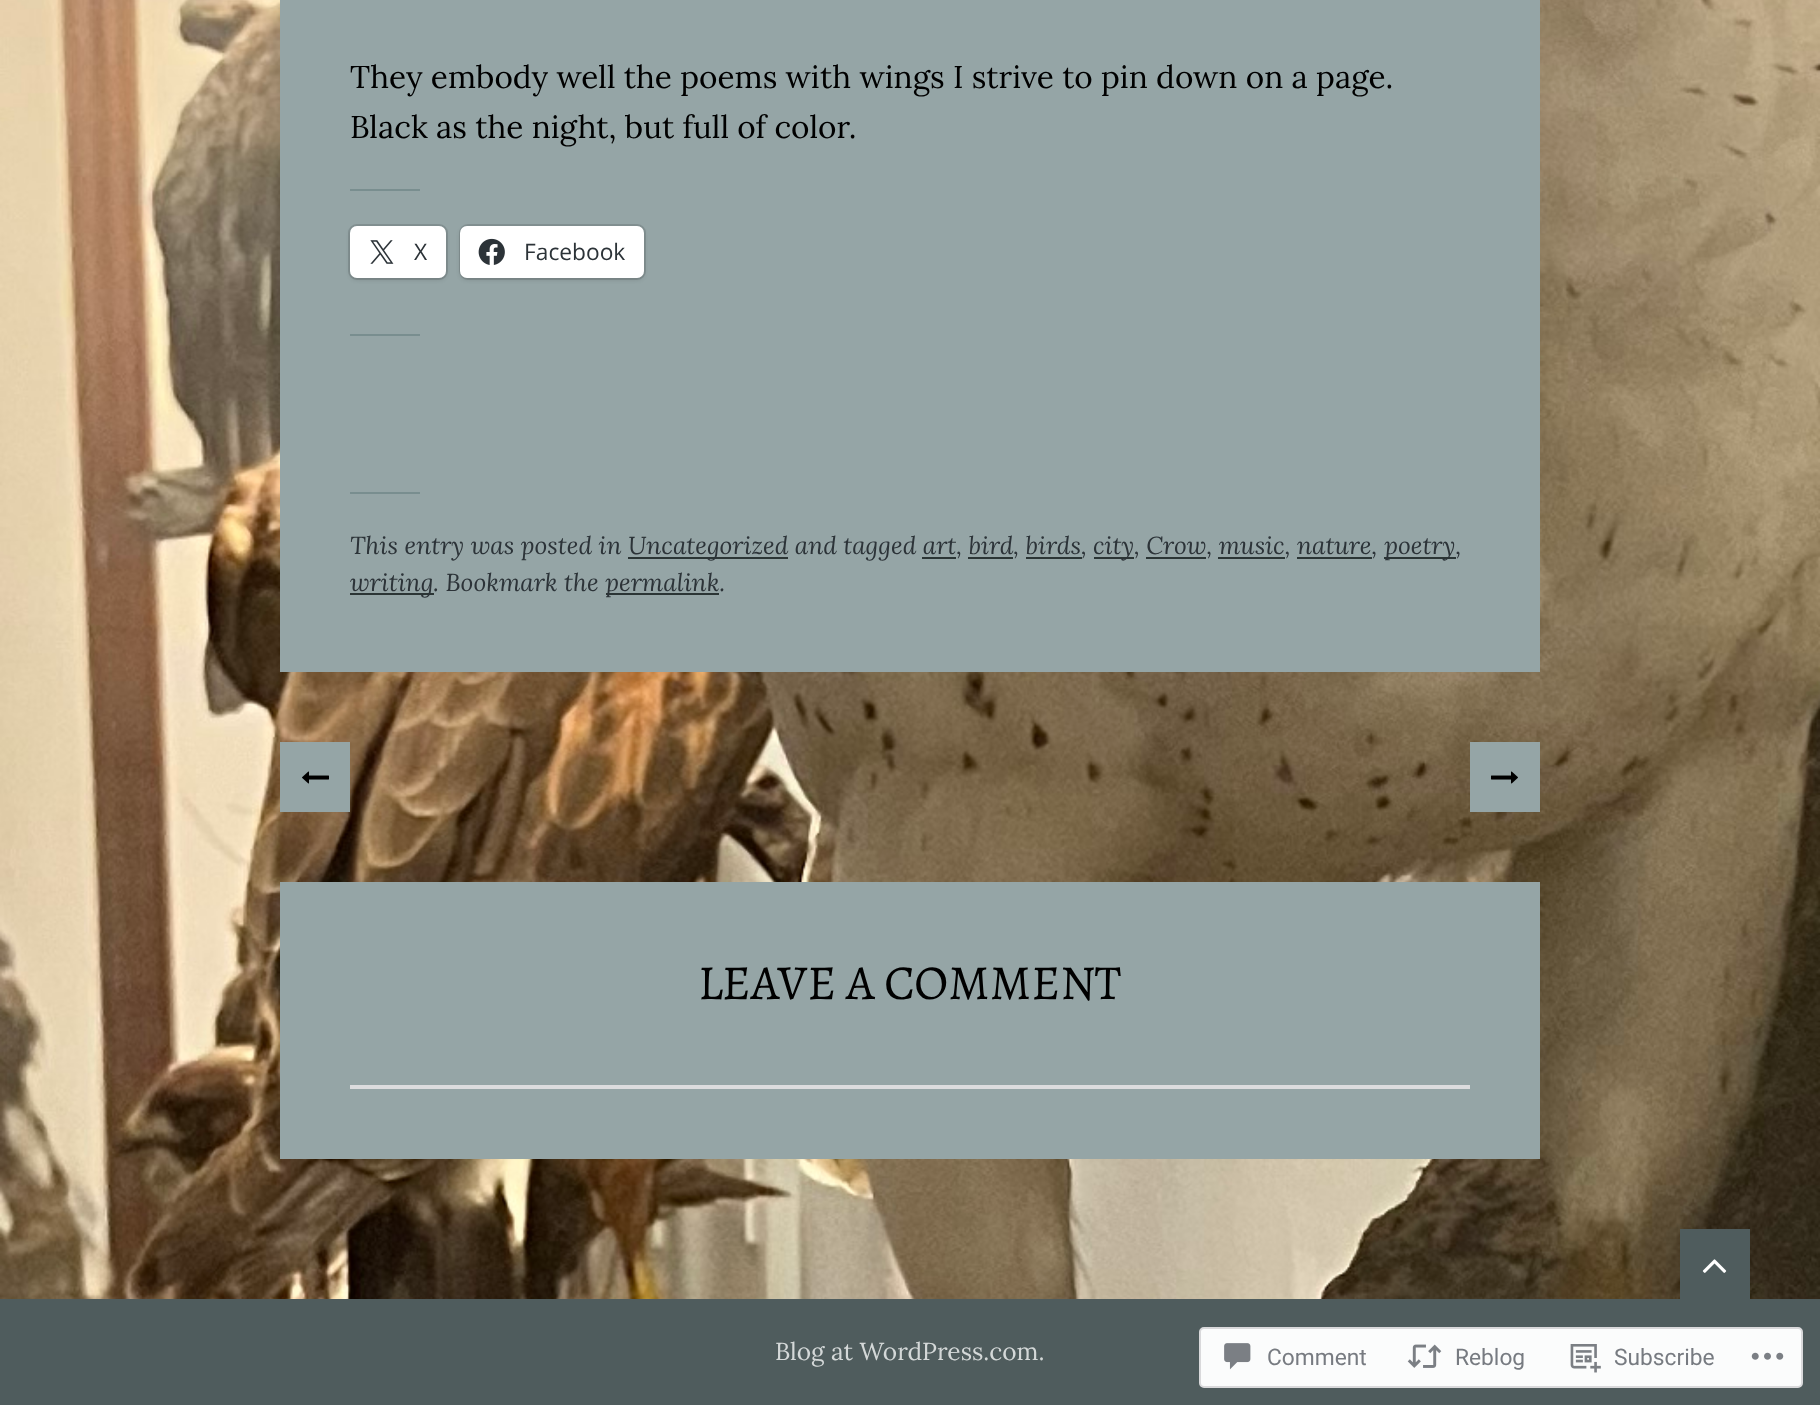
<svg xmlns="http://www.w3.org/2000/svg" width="1820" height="1405">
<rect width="100%" height="100%" fill="#fff"/>
<image x="0" y="0" width="1820" height="1299" href="media/1.png"/>
<rect x="280" width="1260" height="672" fill="#95a5a6"/>
<text x="350" y="88" style="font-family:Lora;font-size:31.5px;fill:#000">They embody well the poems with wings I strive to pin down on a page.</text>
<text x="350" y="138" style="font-family:Lora;font-size:31.5px;fill:#000">Black as the night, but full of color.</text>
<rect x="350" y="189" width="70" height="2" fill="#798e8f"/>
<rect x="349" y="225" width="98" height="54" rx="8" fill="none" stroke="#839192" stroke-width="2"/>
<rect x="350" y="228" width="96" height="52" rx="7" fill="#0000001f" filter="blur(2px)"/>
<rect x="350" y="226" width="96" height="52" rx="7" fill="#fff"/>
<image x="370" y="240" width="24" height="24" href="media/2.png"/>
<text x="414" y="260" style="font-family:Open Sans;font-size:22.75px;fill:#2c3338">X</text>
<rect x="460" y="225" width="185" height="54" rx="8" fill="none" stroke="#839192" stroke-width="2"/>
<rect x="460" y="228" width="184" height="52" rx="7" fill="#0000001f" filter="blur(2px)"/>
<rect x="460" y="226" width="184" height="52" rx="7" fill="#fff"/>
<image x="478" y="238" width="27" height="27" href="media/3.png"/>
<text x="524" y="260" style="font-family:Open Sans;font-size:22.75px;fill:#2c3338">Facebook</text>
<rect x="350" y="334" width="70" height="2" fill="#798e8f"/>
<rect x="350" y="492" width="70" height="2" fill="#798e8f"/>
<text x="350" y="554" style="font-family:Lora;font-size:24.5px;font-style:italic;fill:#2c3338">This entry was posted in</text>
<rect x="628" y="557" width="160" height="2" fill="#2b3535"/>
<text x="628" y="554" style="font-family:Lora;font-size:24.5px;font-style:italic;fill:#2c3338">Uncategorized and tagged art, bird, birds,</text>
<rect x="1094" y="557" width="40" height="2" fill="#2b3535"/>
<text x="1093" y="554" style="font-family:Lora;font-size:24.5px;font-style:italic;fill:#2c3338">city, Crow, music, nature,</text>
<rect x="1384" y="557" width="72" height="2" fill="#2b3535"/>
<text x="1384" y="554" style="font-family:Lora;font-size:24.5px;font-style:italic;fill:#2c3338">poetry,</text>
<rect x="922" y="557" width="34" height="2" fill="#2b3535"/>
<rect x="968" y="557" width="45" height="2" fill="#2b3535"/>
<rect x="1026" y="557" width="56" height="2" fill="#2b3535"/>
<rect x="1146" y="557" width="60" height="2" fill="#2b3535"/>
<rect x="1218" y="557" width="67" height="2" fill="#2b3535"/>
<rect x="1297" y="557" width="75" height="2" fill="#2b3535"/>
<rect x="350" y="593" width="84" height="2" fill="#2b3535"/>
<text x="350" y="591" style="font-family:Lora;font-size:24.5px;font-style:italic;fill:#2c3338">writing. Bookmark the</text>
<rect x="606" y="593" width="113" height="2" fill="#2b3535"/>
<text x="605" y="591" style="font-family:Lora;font-size:24.5px;font-style:italic;fill:#2c3338">permalink.</text>
<rect x="280" y="742" width="70" height="70" fill="#95a5a6"/>
<image x="302" y="771" width="27" height="13" href="media/4.png"/>
<rect x="1470" y="742" width="70" height="70" fill="#95a5a6"/>
<image x="1491" y="771" width="27" height="13" href="media/5.png"/>
<rect x="280" y="882" width="1260" height="277" fill="#95a5a6"/>
<text x="698" y="999" style="font-family:Alegreya;font-size:49px;fill:#000">LEAVE A COMMENT</text>
<rect x="350" y="1085" width="1120" height="4" fill="#dcdcde"/>
<rect x="1680" y="1229" width="70" height="70" fill="#4f5c5d"/>
<image x="1702" y="1259" width="25" height="14" href="media/6.png"/>
<rect y="1299" width="1820" height="106" fill="#4f5c5d"/>
<text x="775" y="1360" style="font-family:Lora;font-size:24.5px;fill:#d4d8d8">Blog at WordPress.com.</text>
<rect x="1200" y="1328" width="602" height="59" rx="4" fill="#fbfcfc" stroke="#d9d9db" stroke-width="2"/>
<image x="1224" y="1343" width="27" height="27" href="media/7.png"/>
<text x="1267" y="1365" style="font-family:Roboto;font-size:22.75px;fill:#777b81">Comment</text>
<image x="1407" y="1344" width="35" height="24" href="media/8.png"/>
<text x="1455" y="1365" style="font-family:Roboto;font-size:22.75px;fill:#777b81">Reblog</text>
<image x="1570" y="1344" width="31" height="29" href="media/9.png"/>
<text x="1614" y="1365" style="font-family:Roboto;font-size:22.75px;fill:#777b81">Subscribe</text>
<image x="1751" y="1352" width="33" height="8" href="media/10.png"/>
</svg>
